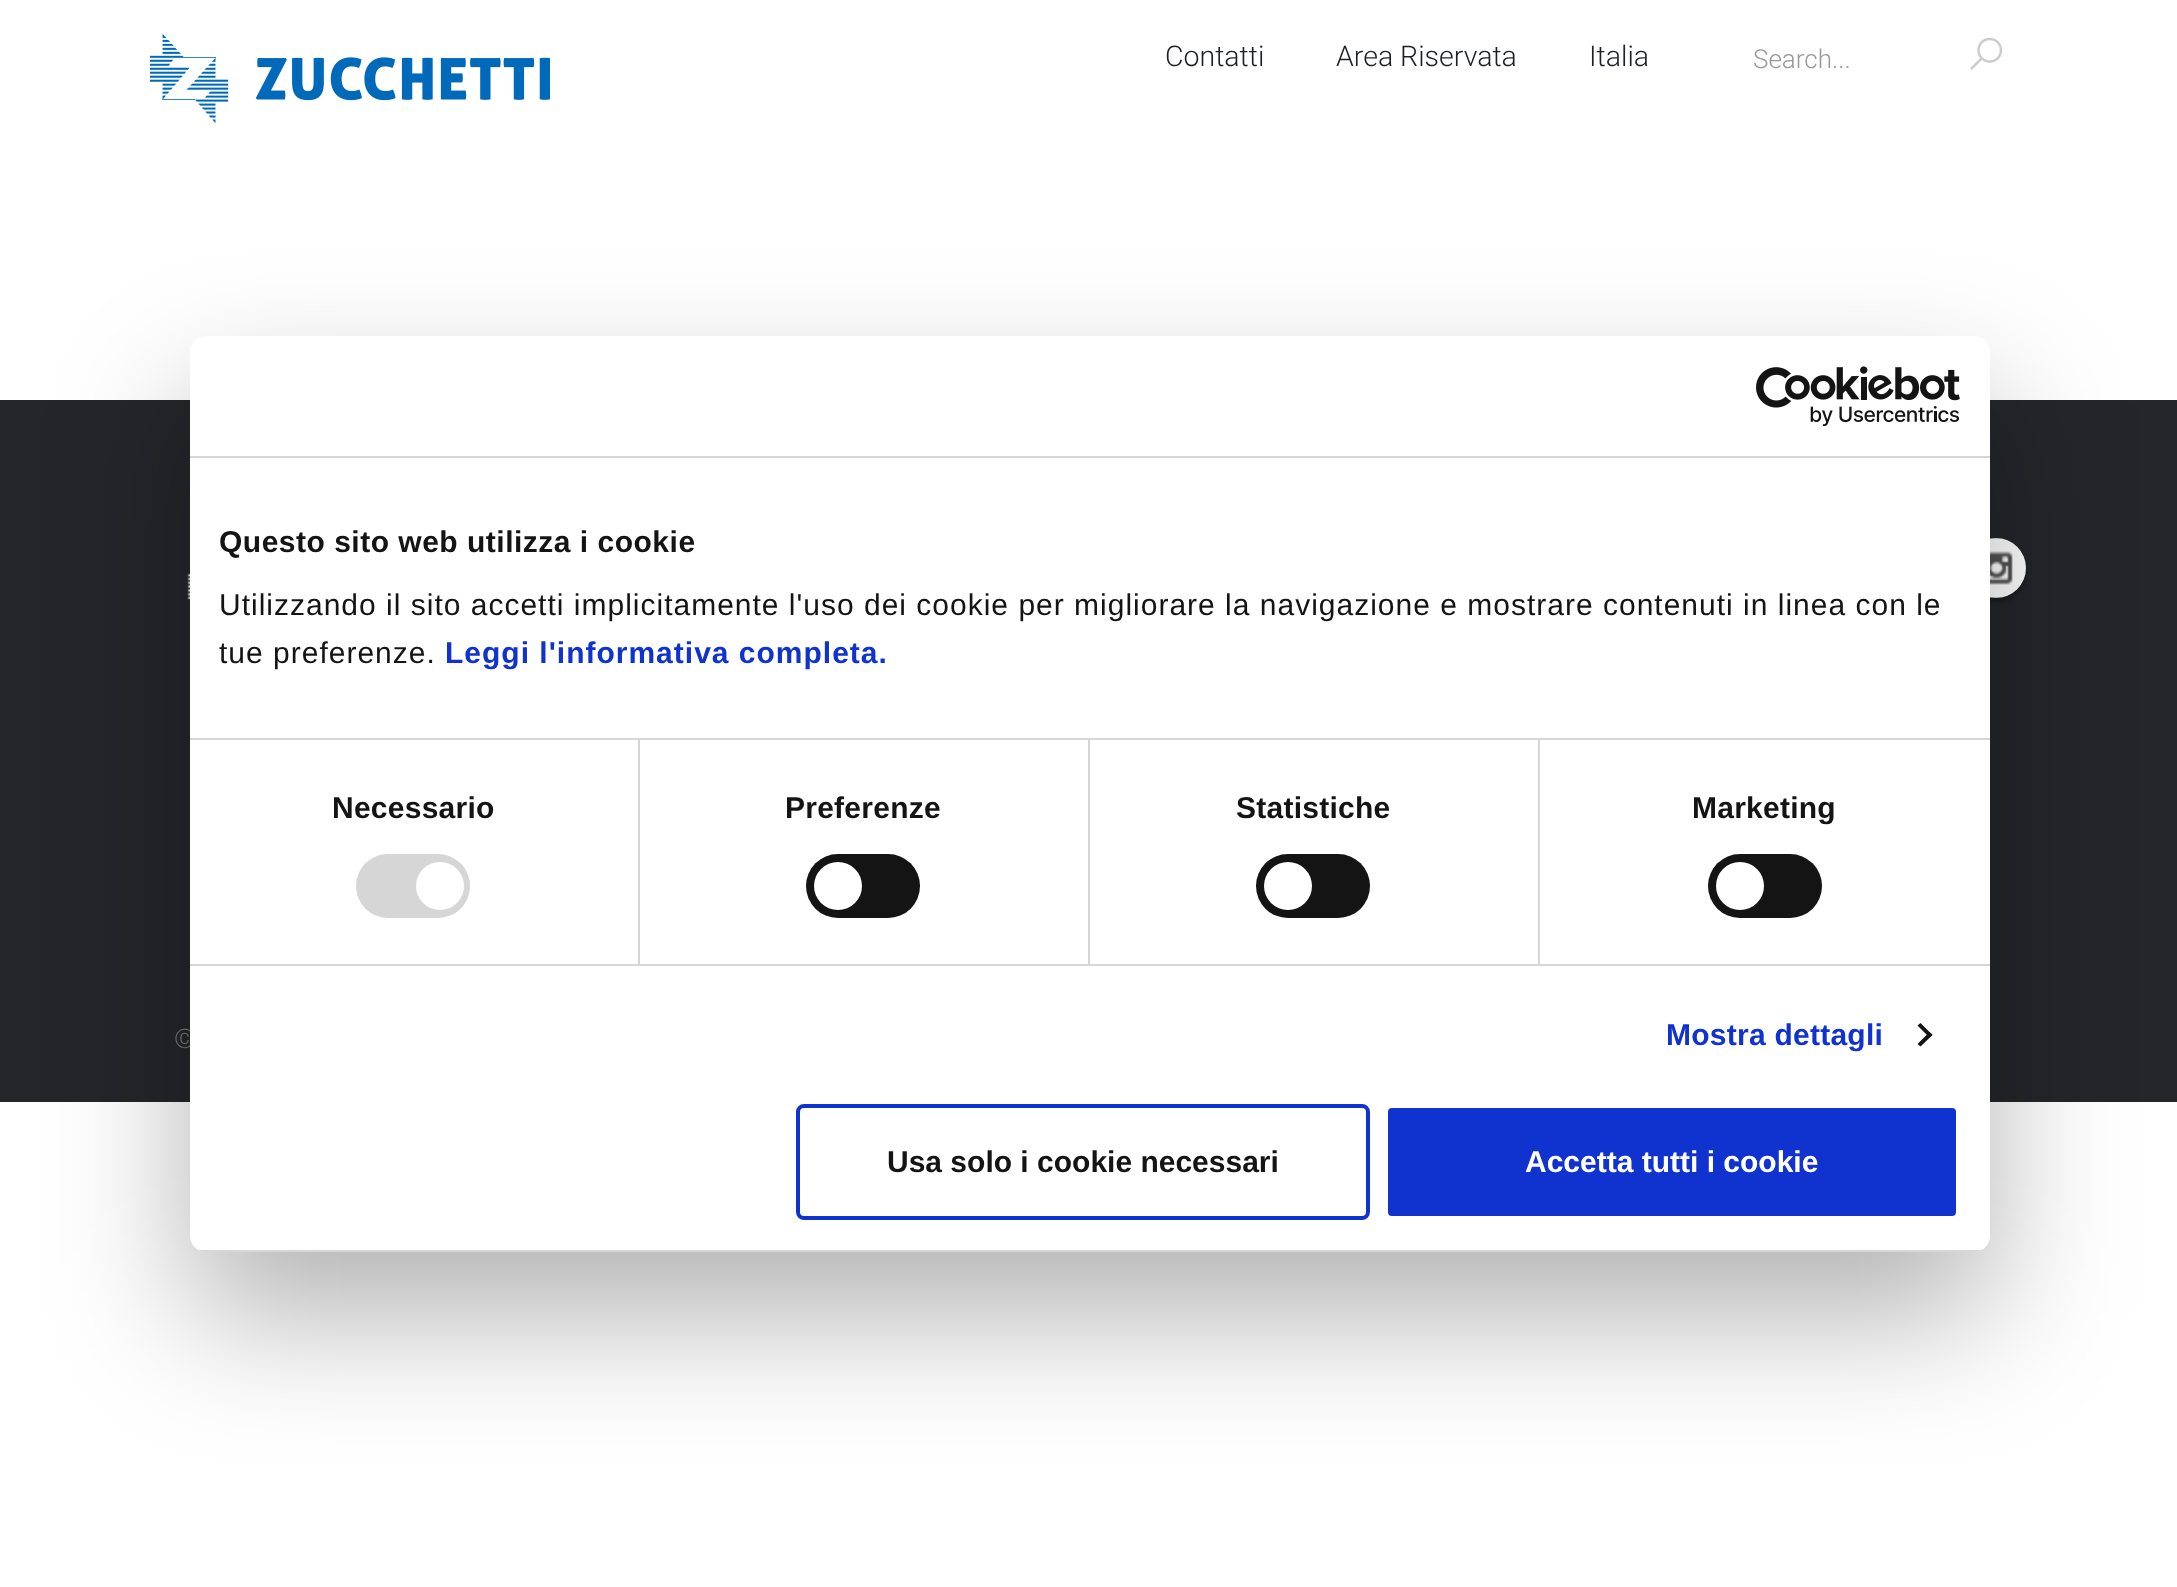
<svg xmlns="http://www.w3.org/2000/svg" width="2177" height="1587">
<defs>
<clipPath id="clip1"><rect x="190" y="336" width="1800" height="916" rx="16"/></clipPath>
</defs>
<rect width="100%" height="100%" fill="#fff"/>
<image x="150" y="34" width="400" height="89" href="media/1.png"/>
<text x="1165" y="66" style="font-family:Roboto;font-size:28.5px;font-weight:300;fill:#1d2127">Contatti</text>
<text x="1336" y="66" style="font-family:Roboto;font-size:28.5px;font-weight:300;fill:#1d2127">Area Riservata</text>
<text x="1589" y="66" style="font-family:Roboto;font-size:28.5px;font-weight:300;fill:#1d2127">Italia</text>
<text x="1753" y="68" style="font-family:Roboto;font-size:26px;font-weight:300;fill:#999">Search...</text>
<image x="1970" y="37" width="33" height="33" href="media/2.png"/>
<rect y="400" width="2177" height="702" fill="#24262b"/>
<image x="187" y="573" width="3" height="27" href="media/3.png"/>
<rect x="1966" y="542" width="60" height="60" rx="30" fill="#0000004d" filter="blur(2px)"/>
<image x="1990" y="538" width="36" height="60" href="media/4.png"/>
<text x="174" y="1048" style="font-family:Roboto;font-size:27px;font-weight:300;fill:#757579">©</text>
<rect x="190" y="400" width="1800" height="916" rx="16" fill="#0000004d" filter="blur(68px)"/>
<rect x="190" y="336" width="1800" height="916" rx="16" fill="#fff"/>
<rect x="190" y="456" width="1800" height="2" fill="#d6d6d6"/>
<image x="1756" y="366" width="204" height="60" href="media/5.png"/>
<rect x="190" y="738" width="1800" height="2" fill="#d6d6d6"/>
<text x="219" y="552" style="font-family:Liberation Sans;font-size:30px;font-weight:bold;letter-spacing:0.5px;fill:#141414">Questo sito web utilizza i cookie</text>
<text x="219" y="615" style="font-family:Liberation Sans;font-size:30px;letter-spacing:1px;fill:#141414">Utilizzando il sito accetti implicitamente l'uso dei cookie per migliorare la navigazione e mostrare contenuti in linea con le</text>
<text x="219" y="663" style="font-family:Liberation Sans;font-size:30px;letter-spacing:1px;fill:#141414">tue preferenze.</text>
<text x="445" y="663" style="font-family:Liberation Sans;font-size:30px;font-weight:bold;letter-spacing:1px;fill:#1032cf">Leggi l'informativa completa.</text>
<rect x="190" y="964" width="1800" height="2" fill="#d6d6d6"/>
<rect x="638" y="740" width="2" height="224" fill="#d6d6d6"/>
<text x="332" y="818" style="font-family:Liberation Sans;font-size:30px;font-weight:bold;letter-spacing:0.25px;fill:#141414">Necessario</text>
<rect x="356" y="854" width="114" height="64" rx="32" fill="#d6d6d6"/>
<circle cx="440" cy="886" r="24" fill="#fff"/>
<rect x="1088" y="740" width="2" height="224" fill="#d6d6d6"/>
<text x="785" y="818" style="font-family:Liberation Sans;font-size:30px;font-weight:bold;letter-spacing:0.25px;fill:#141414">Preferenze</text>
<rect x="806" y="854" width="114" height="64" rx="32" fill="#141414"/>
<circle cx="838" cy="886" r="24" fill="#fff"/>
<rect x="1538" y="740" width="2" height="224" fill="#d6d6d6"/>
<text x="1236" y="818" style="font-family:Liberation Sans;font-size:30px;font-weight:bold;letter-spacing:0.25px;fill:#141414">Statistiche</text>
<rect x="1256" y="854" width="114" height="64" rx="32" fill="#141414"/>
<circle cx="1288" cy="886" r="24" fill="#fff"/>
<text x="1692" y="818" style="font-family:Liberation Sans;font-size:30px;font-weight:bold;letter-spacing:0.25px;fill:#141414">Marketing</text>
<rect x="1708" y="854" width="114" height="64" rx="32" fill="#141414"/>
<circle cx="1740" cy="886" r="24" fill="#fff"/>
<text x="1666" y="1045" style="font-family:Liberation Sans;font-size:30px;font-weight:bold;letter-spacing:0.25px;fill:#1032cf">Mostra dettagli</text>
<path d="M1920.5 1023l12 12l-3 2.5l-12-12z" fill="#141414"/>
<path d="M1929.5 1032l3 3l-12 11.5l-3-2.5z" fill="#141414"/>
<g clip-path="url(#clip1)">
<rect x="190" y="1250" width="1800" height="2" fill="#d6d6d6"/>
</g>
<rect x="798" y="1106" width="570" height="112" rx="6" fill="none" stroke="#1032cf" stroke-width="4"/>
<text x="887" y="1172" style="font-family:Liberation Sans;font-size:30px;font-weight:bold;fill:#141414">Usa solo i cookie necessari</text>
<rect x="1386" y="1106" width="572" height="112" rx="6" fill="#1032cf" stroke="#fff" stroke-width="4"/>
<text x="1525" y="1172" style="font-family:Liberation Sans;font-size:30px;font-weight:bold;fill:#fff">Accetta tutti i cookie</text>
</svg>
